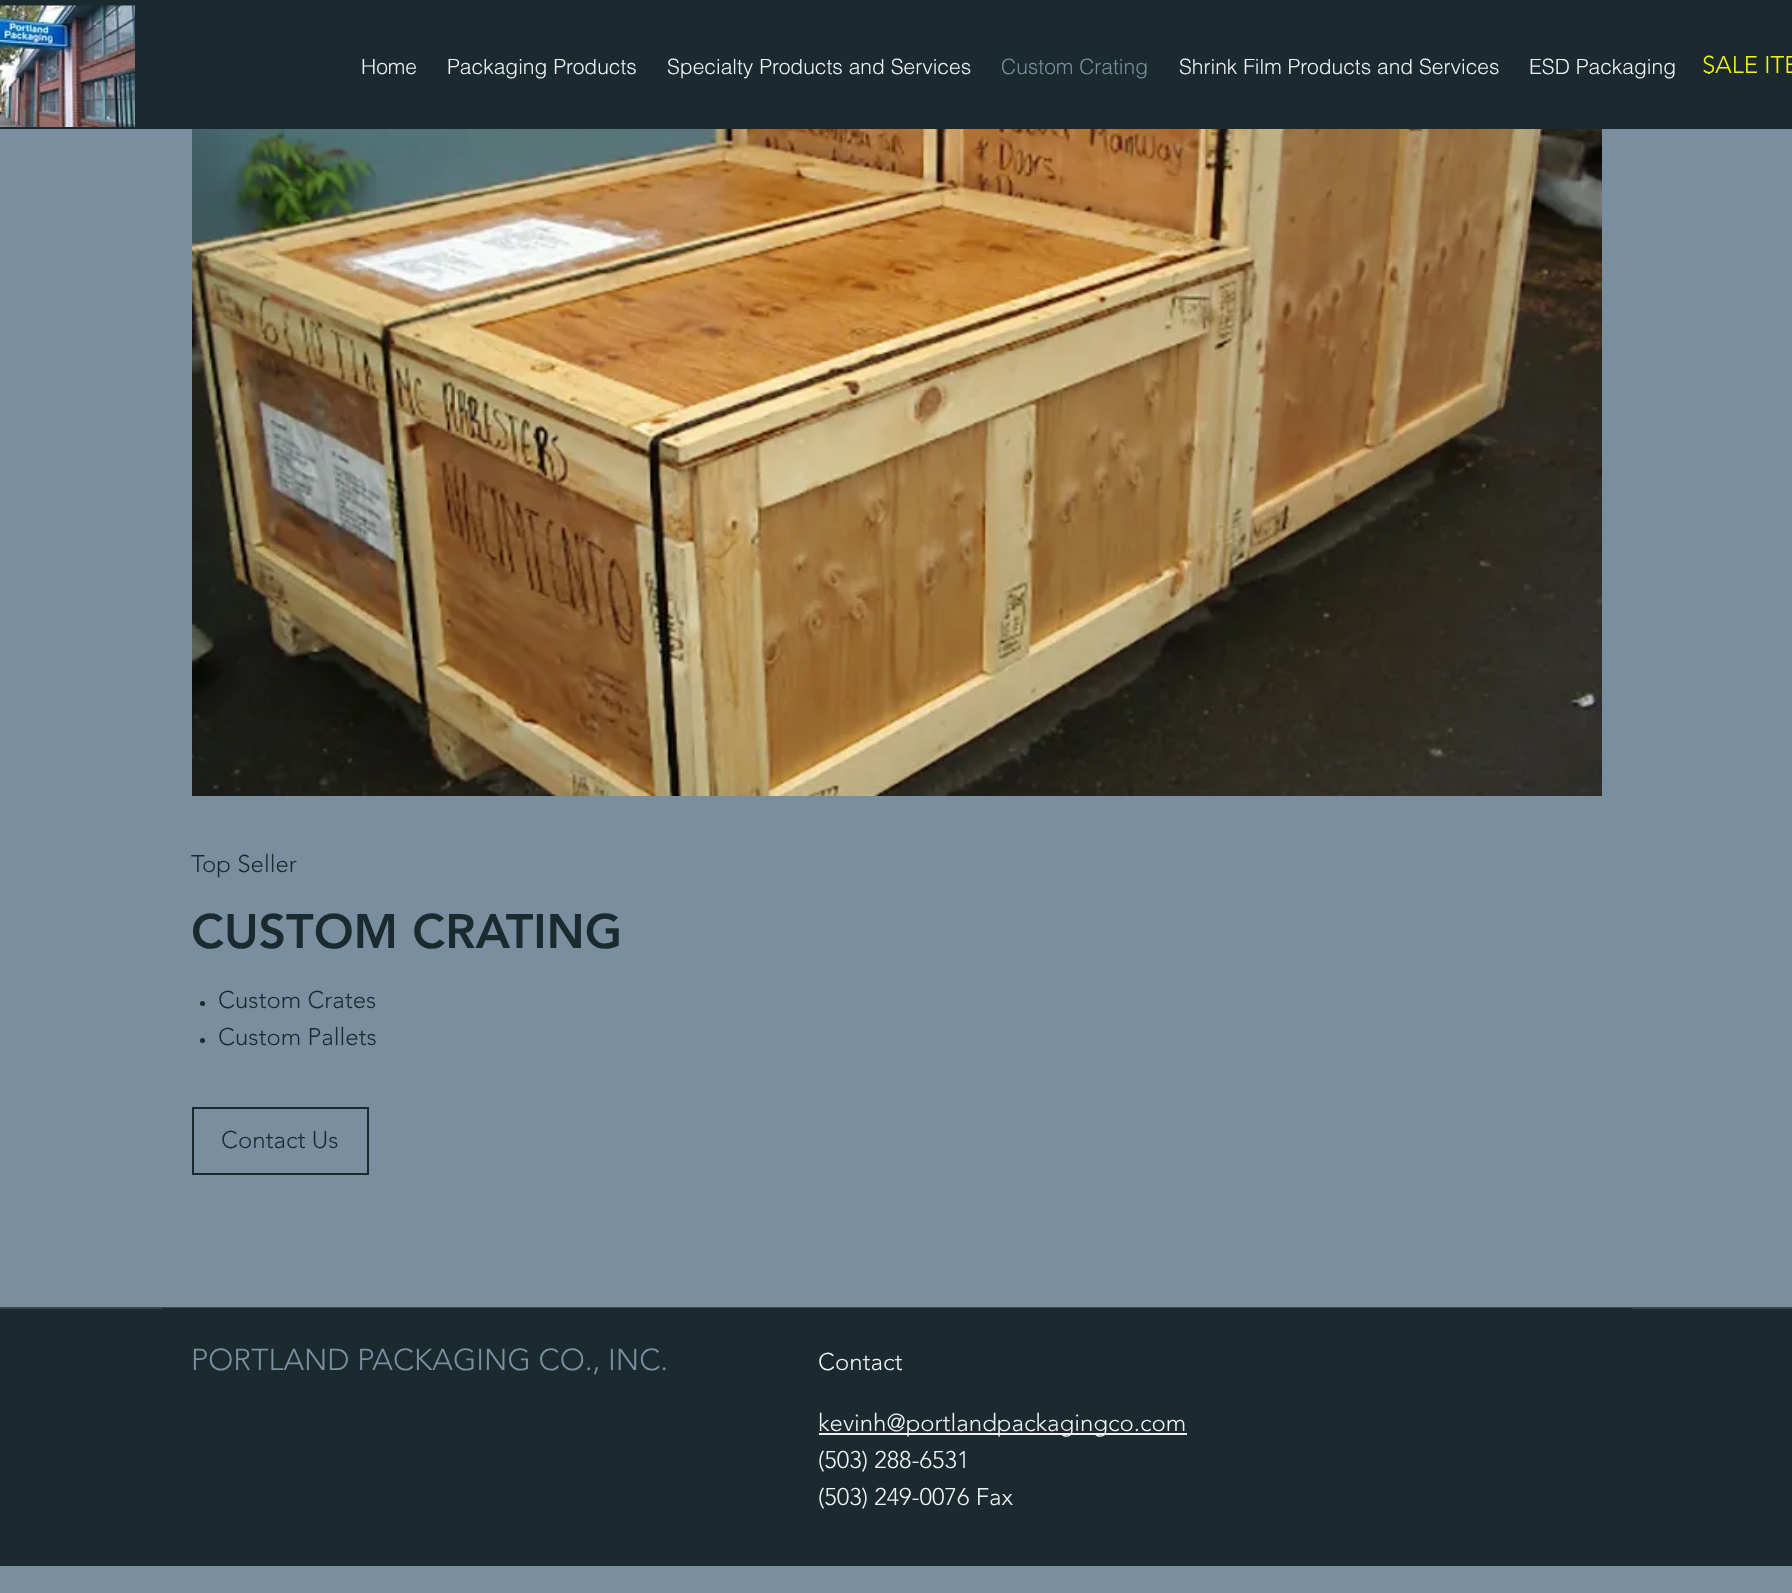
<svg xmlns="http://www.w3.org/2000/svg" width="1792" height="1593">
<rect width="100%" height="100%" fill="#798f9f"/>
<rect width="1792" height="129" fill="#1a2a2f"/>
<image x="0" y="5" width="135" height="122" href="media/1.png"/>
<text x="361" y="74" style="font-family:helvetica;font-size:21px;font-weight:300;fill:#eff1f6">Home</text>
<text x="447" y="74" style="font-family:helvetica;font-size:21px;font-weight:300;fill:#eff1f6">Packaging Products</text>
<text x="667" y="74" style="font-family:helvetica;font-size:21px;font-weight:300;fill:#eff1f6">Specialty Products and Services</text>
<text x="1001" y="74" style="font-family:helvetica;font-size:21px;font-weight:300;fill:#798f9f">Custom Crating</text>
<text x="1179" y="74" style="font-family:helvetica;font-size:21px;font-weight:300;fill:#eff1f6">Shrink Film Products and Services</text>
<text x="1529" y="74" style="font-family:helvetica;font-size:21px;font-weight:300;fill:#eff1f6">ESD Packaging</text>
<text x="1706" y="74" style="font-family:helvetica;font-size:21px;font-weight:300;fill:#eff1f6">.</text>
<text x="1702" y="73" style="font-family:'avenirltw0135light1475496';font-size:24px;font-weight:300;fill:#f2f314">SALE ITE</text>
<image x="192" y="129" width="1410" height="667" href="media/2.png"/>
<text x="191" y="872" style="font-family:'avenirltw0135light1475496';font-size:24px;font-weight:300;fill:#1a2a2f">Top Seller</text>
<text x="191" y="948" style="font-family:'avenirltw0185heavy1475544';font-size:48px;font-weight:900;fill:#1a2a2f">CUSTOM CRATING</text>
<circle cx="202.5" cy="1003.5" r="2.5" fill="#1a2a2f"/>
<text x="218" y="1008" style="font-family:'avenirltw0135light1475496';font-size:24px;font-weight:300;fill:#1a2a2f">Custom Crates</text>
<circle cx="202.5" cy="1040.5" r="2.5" fill="#1a2a2f"/>
<text x="218" y="1045" style="font-family:'avenirltw0135light1475496';font-size:24px;font-weight:300;fill:#1a2a2f">Custom Pallets</text>
<rect x="193" y="1108" width="175" height="66" fill="none" stroke="#1a2a2f" stroke-width="2"/>
<text x="221" y="1148" style="font-family:'avenirltw0135light1475496';font-size:24px;font-weight:300;fill:#1a2a2f">Contact Us</text>
<rect y="1309" width="1792" height="257" fill="#1a2a2f"/>
<rect y="1307" width="1792" height="2" fill="#3a484d"/>
<rect x="162" y="1308" width="1470" height="1" fill="#1a2a2f"/>
<text x="191" y="1370" style="font-family:'avenirltw0135light1475496';font-size:30px;font-weight:300;fill:#798f9f">PORTLAND PACKAGING CO., INC.</text>
<text x="818" y="1370" style="font-family:'avenirltw0135light1475496';font-size:24px;font-weight:300;fill:#eff1f6">Contact</text>
<rect x="819" y="1433" width="368" height="2" fill="#eff1f6"/>
<text x="818" y="1431" style="font-family:'avenirltw0135light1475496';font-size:24px;font-weight:300;fill:#eff1f6">kevinh@portlandpackagingco.com</text>
<text x="818" y="1468" style="font-family:'avenirltw0135light1475496';font-size:24px;font-weight:300;fill:#eff1f6">(503) 288-6531</text>
<text x="818" y="1505" style="font-family:'avenirltw0135light1475496';font-size:24px;font-weight:300;fill:#eff1f6">(503) 249-0076 Fax</text>
</svg>
